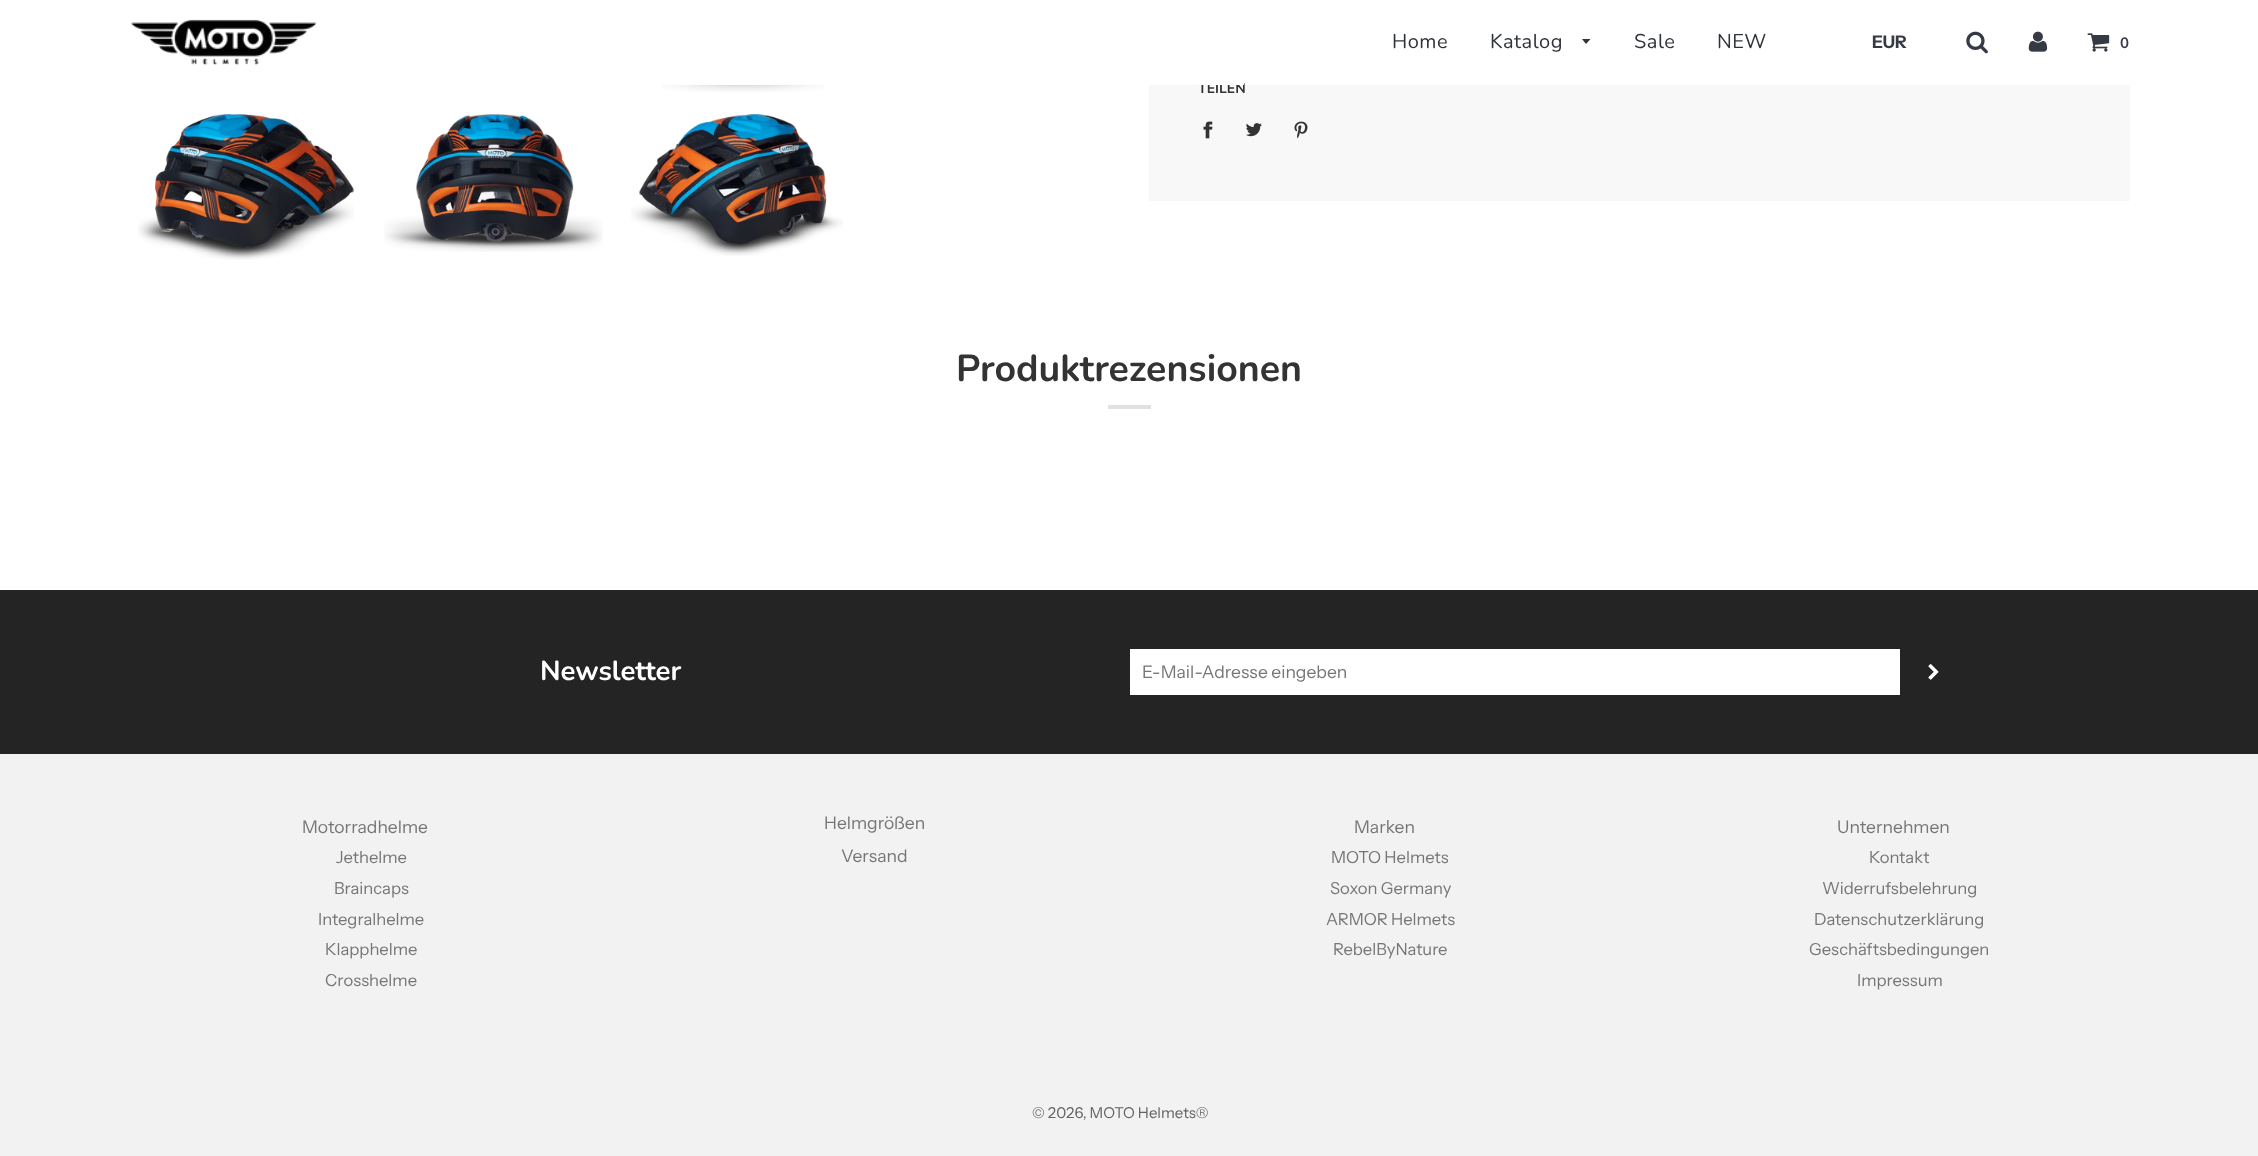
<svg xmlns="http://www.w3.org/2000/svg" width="2258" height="1156">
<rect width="100%" height="100%" fill="#fff"/>
<rect x="1149" y="85" width="981" height="116" fill="#f8f8f8"/>
<text x="1198" y="93" style="font-family:Nunito;font-size:14px;font-weight:bold;fill:#333">TEILEN</text>
<rect x="1198" y="83" width="46" height="2" fill="#fff"/>
<image x="131" y="19" width="186" height="46" href="media/1.png"/>
<text x="1392" y="48" style="font-family:Nunito;font-size:20px;letter-spacing:0.5px;fill:#303339">Home</text>
<text x="1490" y="48" style="font-family:Nunito;font-size:20px;letter-spacing:0.5px;fill:#303339">Katalog</text>
<path d="M1582 39l4 5l4.5-5z" fill="#303339"/>
<text x="1634" y="48" style="font-family:Nunito;font-size:20px;letter-spacing:0.5px;fill:#303339">Sale</text>
<text x="1717" y="48" style="font-family:Nunito;font-size:20px;letter-spacing:0.5px;fill:#303339">NEW</text>
<text x="1872" y="48" style="font-family:Instrument Sans;font-size:17.5px;font-weight:bold;fill:#363a44">EUR</text>
<image x="1966" y="31" width="22" height="23" href="media/2.png"/>
<image x="2028" y="31" width="20" height="21" href="media/3.png"/>
<image x="2087" y="33" width="23" height="19" href="media/4.png"/>
<text x="2120" y="48" style="font-family:Nunito;font-size:15px;font-weight:bold;fill:#363a44">0</text>
<image x="662" y="85" width="162" height="7" href="media/5.png"/>
<image x="138" y="114" width="216" height="146" href="media/6.png"/>
<image x="384" y="114" width="219" height="138" href="media/7.png"/>
<image x="631" y="114" width="212" height="142" href="media/8.png"/>
<image x="1203" y="121" width="10" height="18" href="media/9.png"/>
<image x="1246" y="123" width="16" height="14" href="media/10.png"/>
<image x="1294" y="121" width="14" height="18" href="media/11.png"/>
<text x="956" y="381" style="font-family:Nunito;font-size:37.5px;font-weight:bold;fill:#333">Produktrezensionen</text>
<rect x="1108" y="405" width="43" height="4" fill="#e1e1e1"/>
<rect y="590" width="2258" height="164" fill="#242424"/>
<text x="540" y="680" style="font-family:Nunito;font-size:27.5px;font-weight:bold;fill:#fff">Newsletter</text>
<rect x="1130" y="649" width="770" height="46" fill="#fff"/>
<text x="1142" y="678" style="font-family:Instrument Sans;font-size:17.5px;fill:#767676">E-Mail-Adresse eingeben</text>
<image x="1928" y="664" width="11" height="16" href="media/12.png"/>
<rect y="754" width="2258" height="402" fill="#f2f2f2"/>
<text x="302" y="833" style="font-family:Instrument Sans;font-size:17.5px;fill:#767676">Motorradhelme</text>
<text x="336" y="863" style="font-family:Instrument Sans;font-size:16.6px;fill:#767676">Jethelme</text>
<text x="334" y="894" style="font-family:Instrument Sans;font-size:16.6px;fill:#767676">Braincaps</text>
<text x="318" y="925" style="font-family:Instrument Sans;font-size:16.6px;fill:#767676">Integralhelme</text>
<text x="325" y="955" style="font-family:Instrument Sans;font-size:16.6px;fill:#767676">Klapphelme</text>
<text x="325" y="986" style="font-family:Instrument Sans;font-size:16.6px;fill:#767676">Crosshelme</text>
<text x="824" y="829" style="font-family:Instrument Sans;font-size:17.5px;fill:#767676">Helmgrößen</text>
<text x="841" y="862" style="font-family:Instrument Sans;font-size:17.5px;fill:#767676">Versand</text>
<text x="1354" y="833" style="font-family:Instrument Sans;font-size:17.5px;fill:#767676">Marken</text>
<text x="1331" y="863" style="font-family:Instrument Sans;font-size:16.6px;fill:#767676">MOTO Helmets</text>
<text x="1330" y="894" style="font-family:Instrument Sans;font-size:16.6px;fill:#767676">Soxon Germany</text>
<text x="1326" y="925" style="font-family:Instrument Sans;font-size:16.6px;fill:#767676">ARMOR Helmets</text>
<text x="1333" y="955" style="font-family:Instrument Sans;font-size:16.6px;fill:#767676">RebelByNature</text>
<text x="1837" y="833" style="font-family:Instrument Sans;font-size:17.5px;fill:#767676">Unternehmen</text>
<text x="1869" y="863" style="font-family:Instrument Sans;font-size:16.6px;fill:#767676">Kontakt</text>
<text x="1822" y="894" style="font-family:Instrument Sans;font-size:16.6px;fill:#767676">Widerrufsbelehrung</text>
<text x="1814" y="925" style="font-family:Instrument Sans;font-size:16.6px;fill:#767676">Datenschutzerklärung</text>
<text x="1809" y="955" style="font-family:Instrument Sans;font-size:16.6px;fill:#767676">Geschäftsbedingungen</text>
<text x="1857" y="986" style="font-family:Instrument Sans;font-size:16.6px;fill:#767676">Impressum</text>
<text x="1032" y="1118" style="font-family:Instrument Sans;font-size:15px;fill:#636363">© 2026, MOTO Helmets®</text>
</svg>
